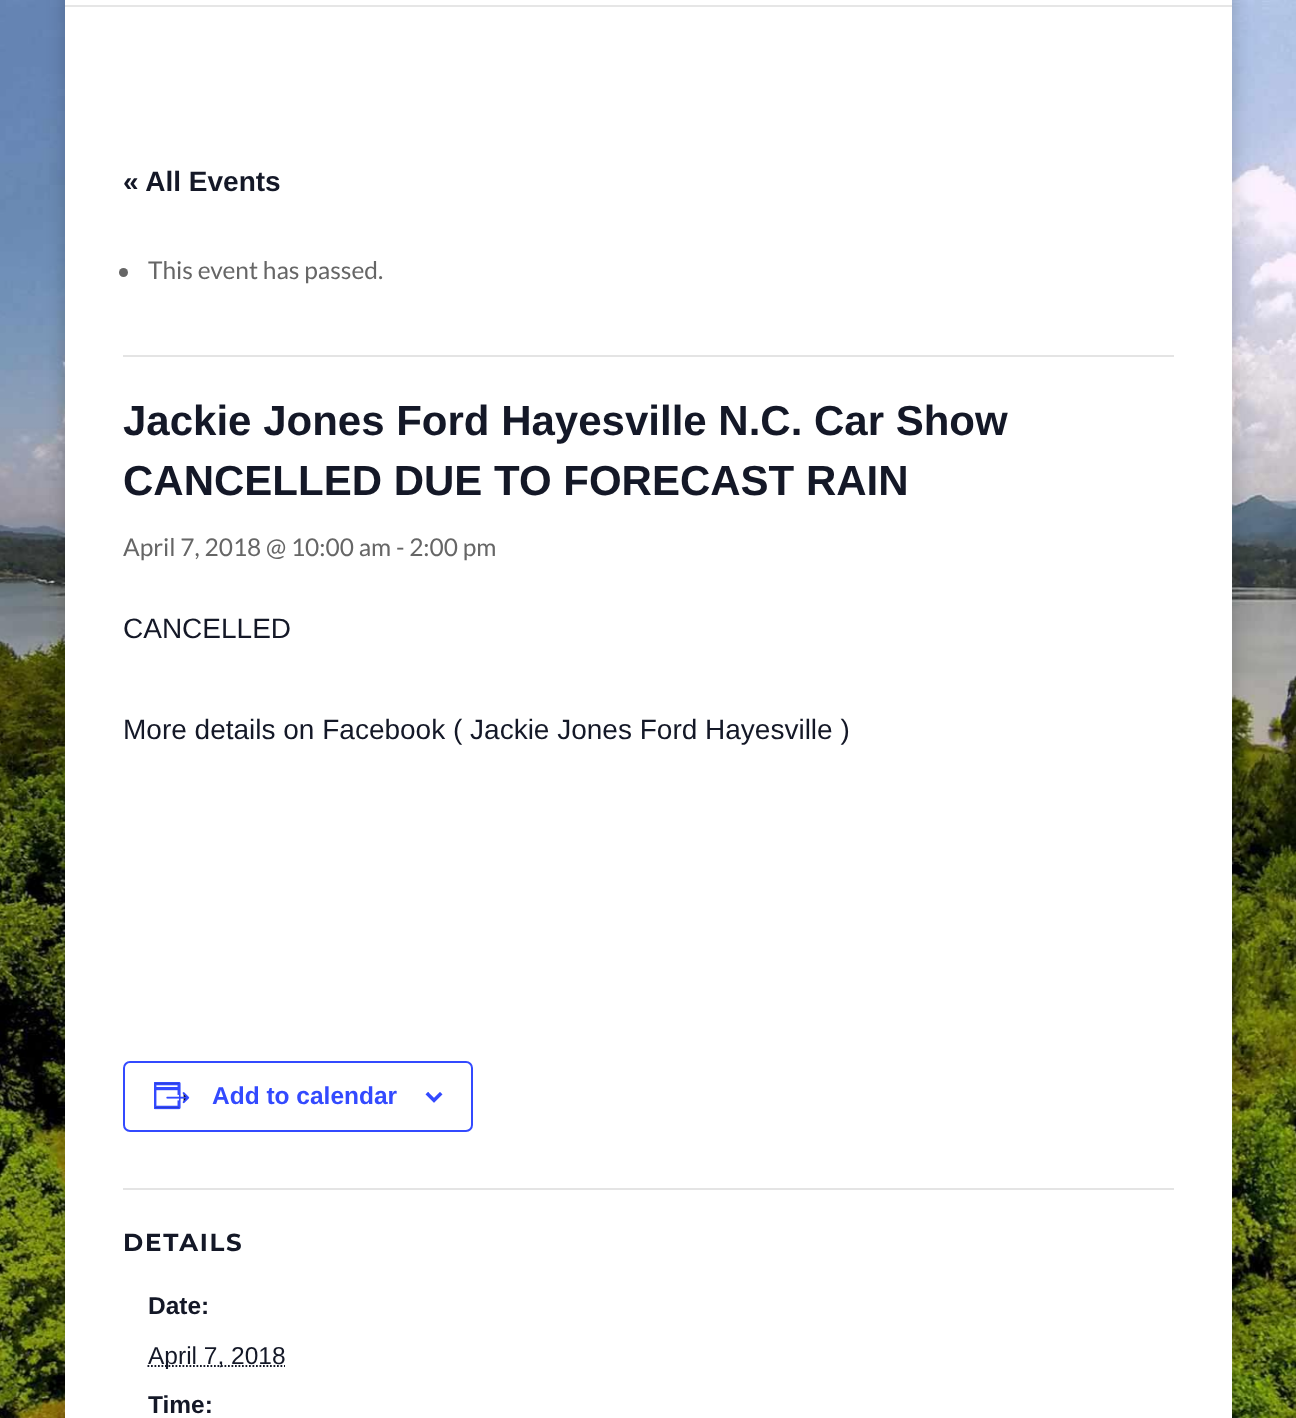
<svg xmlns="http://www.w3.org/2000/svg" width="1296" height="1418">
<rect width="100%" height="100%" fill="#fff"/>
<image x="0" y="0" width="1296" height="1418" href="media/1.png"/>
<rect x="65" y="-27" width="1167" height="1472" fill="#00000033" filter="blur(9px)"/>
<rect x="65" y="5" width="1167" height="2" fill="#e6e6e6"/>
<rect x="65" width="1167" height="5" fill="#fff"/>
<rect x="65" y="7" width="1167" height="1411" fill="#fff"/>
<text x="123" y="191" style="font-family:Liberation Sans;font-size:28px;font-weight:bold;fill:#141827">« All Events</text>
<rect x="123" y="355" width="1051" height="2" fill="#e4e4e4"/>
<circle cx="123.5" cy="272.5" r="4.5" fill="#666"/>
<text x="148" y="279" style="font-family:Lato;font-size:24.5px;fill:#666">This event has passed.</text>
<text x="123" y="435" style="font-family:Liberation Sans;font-size:42px;font-weight:bold;fill:#141827">Jackie Jones Ford Hayesville N.C. Car Show</text>
<text x="123" y="495" style="font-family:Liberation Sans;font-size:42px;font-weight:bold;fill:#141827">CANCELLED DUE TO FORECAST RAIN</text>
<text x="123" y="556" style="font-family:Lato;font-size:24.5px;fill:#666">April 7, 2018 @ 10:00 am - 2:00 pm</text>
<text x="123" y="638" style="font-family:Liberation Sans;font-size:28px;fill:#141827">CANCELLED</text>
<text x="123" y="739" style="font-family:Liberation Sans;font-size:28px;fill:#141827">More details on Facebook ( Jackie Jones Ford Hayesville )</text>
<rect x="124" y="1062" width="348" height="69" rx="6" fill="none" stroke="#334aff" stroke-width="2"/>
<image x="154" y="1082" width="36" height="28" href="media/2.png"/>
<text x="212" y="1104" style="font-family:Liberation Sans;font-size:24.5px;font-weight:bold;fill:#334aff">Add to calendar</text>
<image x="425" y="1092" width="18" height="11" href="media/3.png"/>
<rect x="123" y="1188" width="1051" height="2" fill="#e4e4e4"/>
<text x="123" y="1251" style="font-family:Montserrat;font-size:24.5px;font-weight:100;letter-spacing:1.75px;fill:#141827">DETAILS</text>
<text x="148" y="1314" style="font-family:Liberation Sans;font-size:24.5px;font-weight:bold;fill:#141827">Date:</text>
<path d="M147.5 1366h137.5" fill="none" stroke="#141827" stroke-width="1.8" stroke-dasharray="1.75 1.75"/>
<text x="148" y="1364" style="font-family:Liberation Sans;font-size:24.5px;fill:#141827">April 7, 2018</text>
<text x="148" y="1413" style="font-family:Liberation Sans;font-size:24.5px;font-weight:bold;fill:#141827">Time:</text>
</svg>
